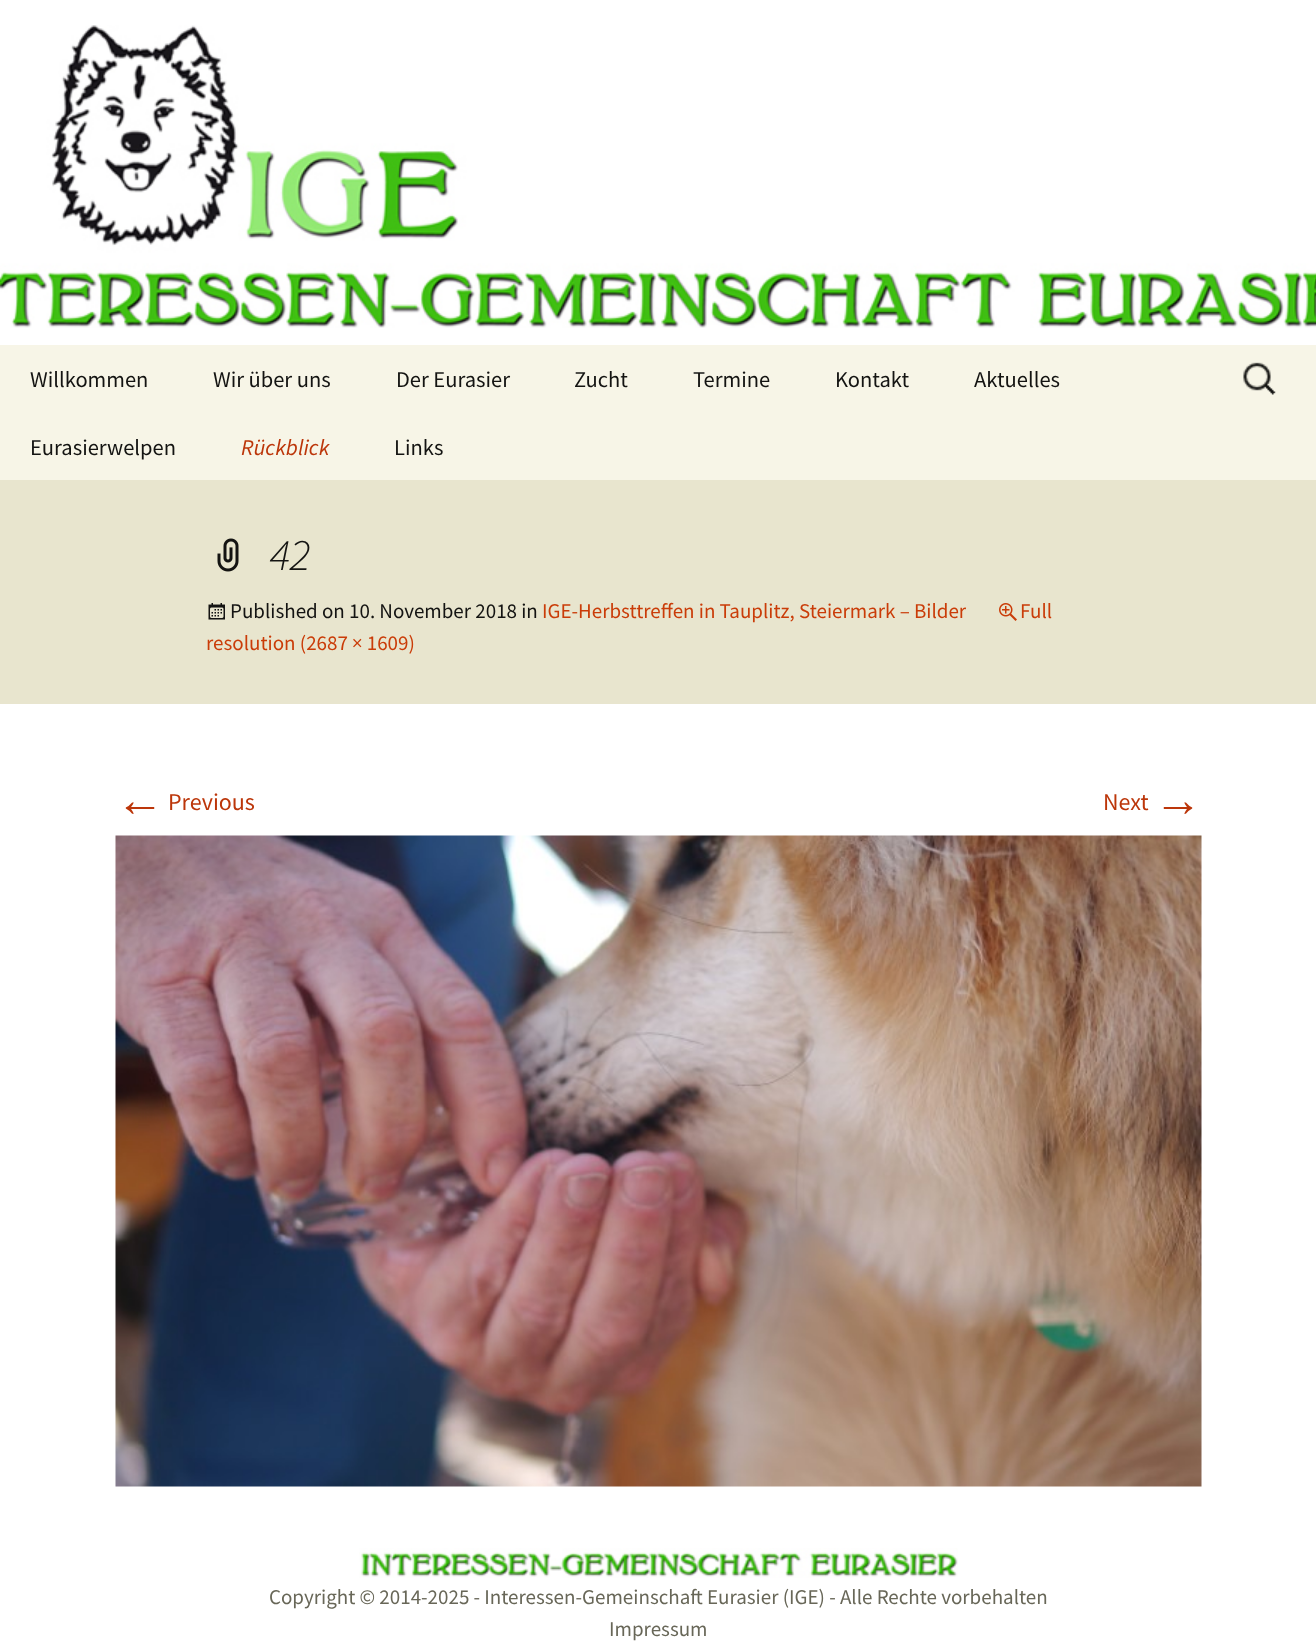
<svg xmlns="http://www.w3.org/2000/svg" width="1316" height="1643">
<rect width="100%" height="100%" fill="#fff"/>
<image x="0" y="25" width="1316" height="303" href="media/1.png"/>
<rect y="345" width="1316" height="135" fill="#f7f5e7"/>
<text x="30" y="387" style="font-family:Source Sans Pro;font-size:22.5px;fill:#141412">Willkommen</text>
<text x="213" y="387" style="font-family:Source Sans Pro;font-size:22.5px;fill:#141412">Wir über uns</text>
<text x="396" y="387" style="font-family:Source Sans Pro;font-size:22.5px;fill:#141412">Der Eurasier</text>
<text x="574" y="387" style="font-family:Source Sans Pro;font-size:22.5px;fill:#141412">Zucht</text>
<text x="693" y="387" style="font-family:Source Sans Pro;font-size:22.5px;fill:#141412">Termine</text>
<text x="835" y="387" style="font-family:Source Sans Pro;font-size:22.5px;fill:#141412">Kontakt</text>
<text x="974" y="387" style="font-family:Source Sans Pro;font-size:22.5px;fill:#141412">Aktuelles</text>
<text x="30" y="455" style="font-family:Source Sans Pro;font-size:22.5px;fill:#141412">Eurasierwelpen</text>
<text x="241" y="455" style="font-family:Source Sans Pro;font-size:22.5px;font-style:italic;fill:#bc360a">Rückblick</text>
<text x="394" y="455" style="font-family:Source Sans Pro;font-size:22.5px;fill:#141412">Links</text>
<image x="1243" y="362" width="33" height="33" href="media/2.png"/>
<rect y="480" width="1316" height="224" fill="#e8e5ce"/>
<image x="217" y="538" width="22" height="34" href="media/3.png"/>
<text x="269" y="570" style="font-family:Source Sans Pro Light;font-size:45px;font-weight:300;font-style:italic;fill:#141412">42</text>
<image x="208" y="603" width="17" height="17" href="media/4.png"/>
<text x="230" y="618" style="font-family:Source Sans Pro;font-size:21px;fill:#141412">Published on 10. November 2018 in</text>
<text x="542" y="618" style="font-family:Source Sans Pro;font-size:21px;fill:#ca3c08">IGE-Herbsttreffen in Tauplitz, Steiermark – Bilder</text>
<image x="999" y="603" width="18" height="18" href="media/5.png"/>
<text x="1020" y="618" style="font-family:Source Sans Pro;font-size:21px;fill:#ca3c08">Full</text>
<text x="206" y="650" style="font-family:Source Sans Pro;font-size:21px;fill:#ca3c08">resolution (2687 × 1609)</text>
<text x="116" y="816" style="font-family:Liberation Sans;font-size:48px;fill:#bc360a">←</text>
<text x="168" y="810" style="font-family:Source Sans Pro;font-size:24px;fill:#bc360a">Previous</text>
<text x="1103" y="810" style="font-family:Source Sans Pro;font-size:24px;fill:#bc360a">Next</text>
<text x="1154" y="816" style="font-family:Liberation Sans;font-size:48px;fill:#bc360a">→</text>
<image x="115" y="835" width="1087" height="652" href="media/6.png"/>
<image x="359" y="1548" width="599" height="30" href="media/7.png"/>
<text x="269" y="1604" style="font-family:Source Sans Pro;font-size:21px;fill:#686758">Copyright © 2014-2025 - Interessen-Gemeinschaft Eurasier (IGE) - Alle Rechte vorbehalten</text>
<text x="609" y="1636" style="font-family:Source Sans Pro;font-size:21px;fill:#686758">Impressum</text>
</svg>
